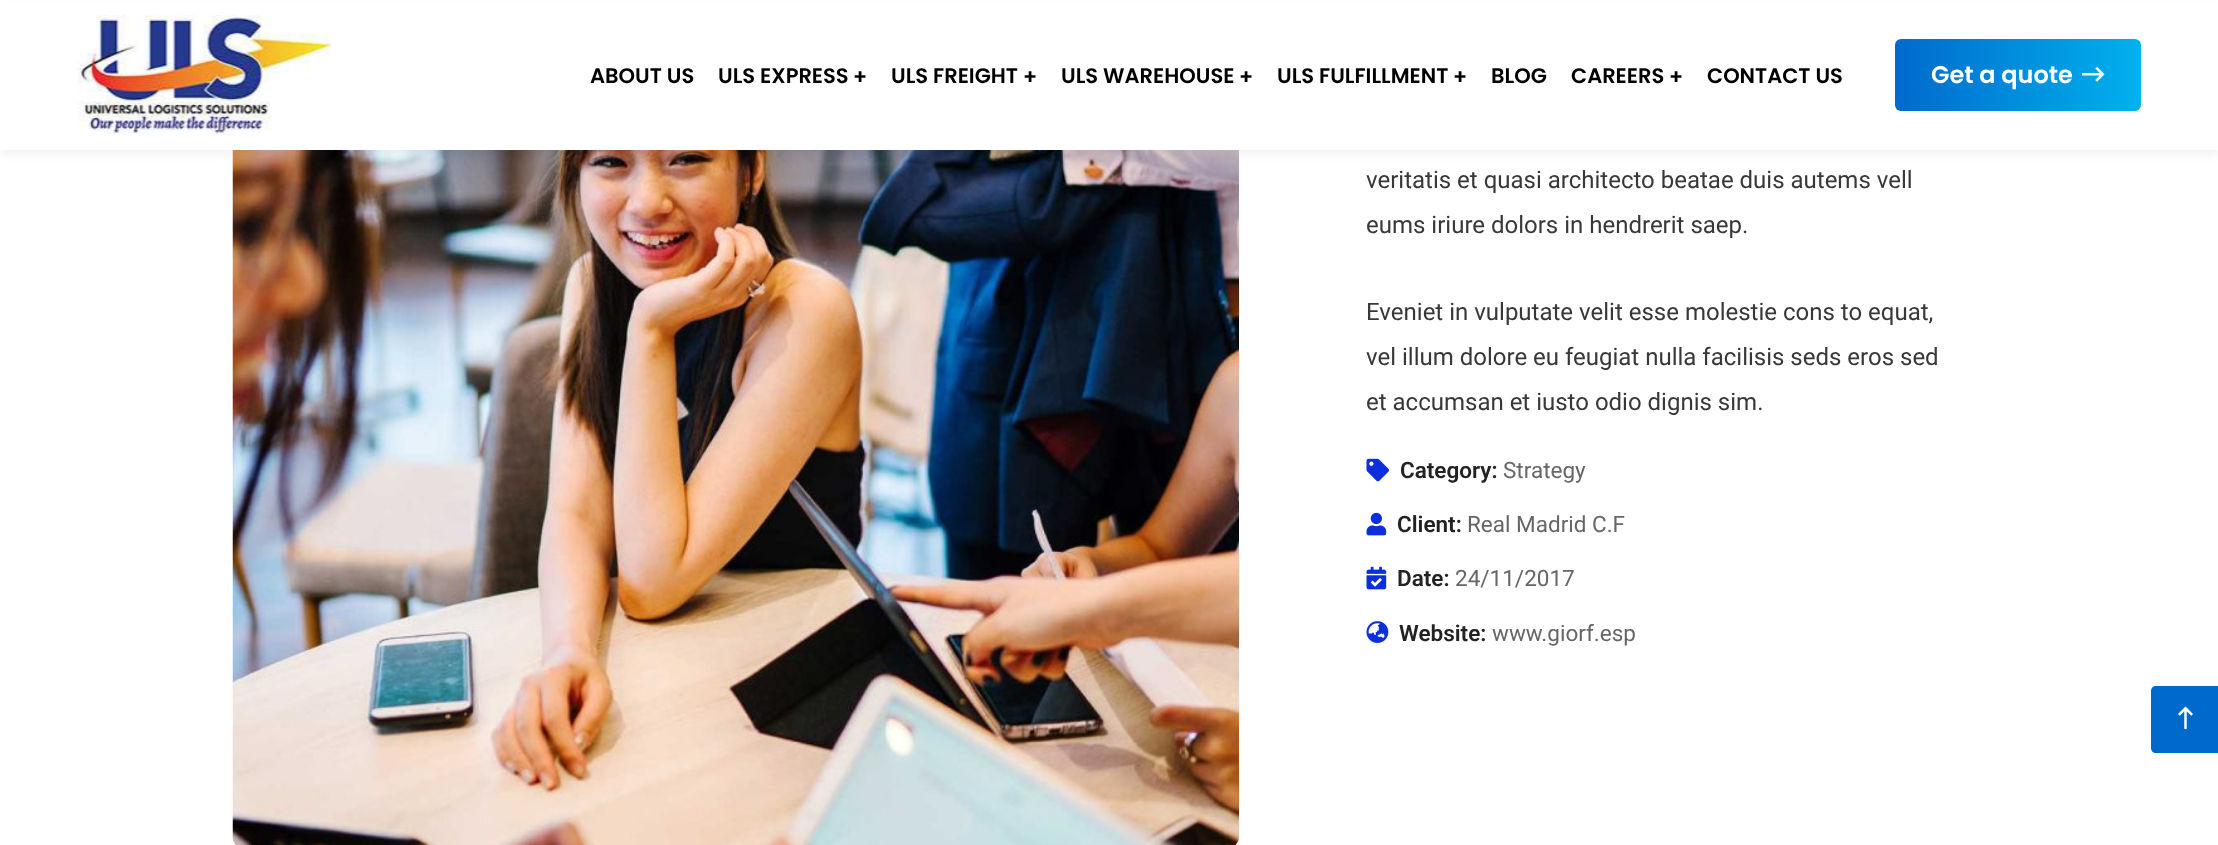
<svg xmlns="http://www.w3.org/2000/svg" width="2218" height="845">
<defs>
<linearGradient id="g1" gradientUnits="userSpaceOnUse" x1="1895" y1="75" x2="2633" y2="75"><stop offset="0" stop-color="#006acc"/><stop offset="0.5" stop-color="#01d5ff"/><stop offset="1" stop-color="#006acc"/></linearGradient>
</defs>
<rect width="100%" height="100%" fill="#fff"/>
<image x="232" y="150" width="1007" height="695" href="media/3.png"/>
<rect y="5" width="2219" height="150" fill="#0000000d" filter="blur(4.5px)"/>
<rect y="1" width="2218" height="149" fill="#fff"/>
<image x="77" y="15" width="256" height="120" href="media/1.png"/>
<text x="590" y="83" style="font-family:Poppins;font-size:21px;font-weight:600;fill:#000">ABOUT US</text>
<text x="718" y="83" style="font-family:Poppins;font-size:21px;font-weight:600;fill:#000">ULS EXPRESS</text>
<text x="853" y="84" style="font-family:Poppins;font-size:21px;font-weight:600;fill:#000">+</text>
<text x="891" y="83" style="font-family:Poppins;font-size:21px;font-weight:600;fill:#000">ULS FREIGHT</text>
<text x="1023" y="84" style="font-family:Poppins;font-size:21px;font-weight:600;fill:#000">+</text>
<text x="1061" y="83" style="font-family:Poppins;font-size:21px;font-weight:600;fill:#000">ULS WAREHOUSE</text>
<text x="1239" y="84" style="font-family:Poppins;font-size:21px;font-weight:600;fill:#000">+</text>
<text x="1277" y="83" style="font-family:Poppins;font-size:21px;font-weight:600;fill:#000">ULS FULFILLMENT</text>
<text x="1453" y="84" style="font-family:Poppins;font-size:21px;font-weight:600;fill:#000">+</text>
<text x="1491" y="83" style="font-family:Poppins;font-size:21px;font-weight:600;fill:#000">BLOG</text>
<text x="1571" y="83" style="font-family:Poppins;font-size:21px;font-weight:600;fill:#000">CAREERS</text>
<text x="1669" y="84" style="font-family:Poppins;font-size:21px;font-weight:600;fill:#000">+</text>
<text x="1707" y="83" style="font-family:Poppins;font-size:21px;font-weight:600;fill:#000">CONTACT US</text>
<rect x="1895" y="39" width="246" height="72" rx="6" fill="url(#g1)"/>
<text x="1931" y="83" style="font-family:Poppins;font-size:24px;font-weight:600;fill:#fff">Get a quote</text>
<image x="2082" y="66" width="23" height="16" href="media/2.png"/>
<text x="1366" y="188" style="font-family:Roboto;font-size:24px;fill:#383838">veritatis et quasi architecto beatae duis autems vell</text>
<text x="1366" y="233" style="font-family:Roboto;font-size:24px;fill:#383838">eums iriure dolors in hendrerit saep.</text>
<text x="1366" y="320" style="font-family:Roboto;font-size:24px;fill:#383838">Eveniet in vulputate velit esse molestie cons to equat,</text>
<text x="1366" y="365" style="font-family:Roboto;font-size:24px;fill:#383838">vel illum dolore eu feugiat nulla facilisis seds eros sed</text>
<text x="1366" y="410" style="font-family:Roboto;font-size:24px;fill:#383838">et accumsan et iusto odio dignis sim.</text>
<image x="1366" y="458" width="23" height="24" href="media/4.png"/>
<text x="1400" y="478" style="font-family:Roboto;font-size:22.5px;font-weight:600;fill:#222">Category:</text>
<text x="1503" y="478" style="font-family:Roboto;font-size:22.5px;fill:#666">Strategy</text>
<image x="1366" y="512" width="21" height="24" href="media/5.png"/>
<text x="1397" y="532" style="font-family:Roboto;font-size:22.5px;font-weight:600;fill:#222">Client:</text>
<text x="1467" y="532" style="font-family:Roboto;font-size:22.5px;fill:#666">Real Madrid C.F</text>
<image x="1366" y="566" width="21" height="24" href="media/6.png"/>
<text x="1397" y="586" style="font-family:Roboto;font-size:22.5px;font-weight:600;fill:#222">Date:</text>
<text x="1455" y="586" style="font-family:Roboto;font-size:22.5px;fill:#666">24/11/2017</text>
<image x="1366" y="621" width="23" height="22" href="media/7.png"/>
<text x="1399" y="641" style="font-family:Roboto;font-size:22.5px;font-weight:600;fill:#222">Website:</text>
<text x="1492" y="641" style="font-family:Roboto;font-size:22.5px;fill:#666">www.giorf.esp</text>
<path d="M2156 686h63v67h-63c-3 0-5-2-5-5v-57c0-3 2-5 5-5z" fill="#006acc"/>
<image x="2178" y="706" width="15" height="23" href="media/8.png"/>
</svg>
